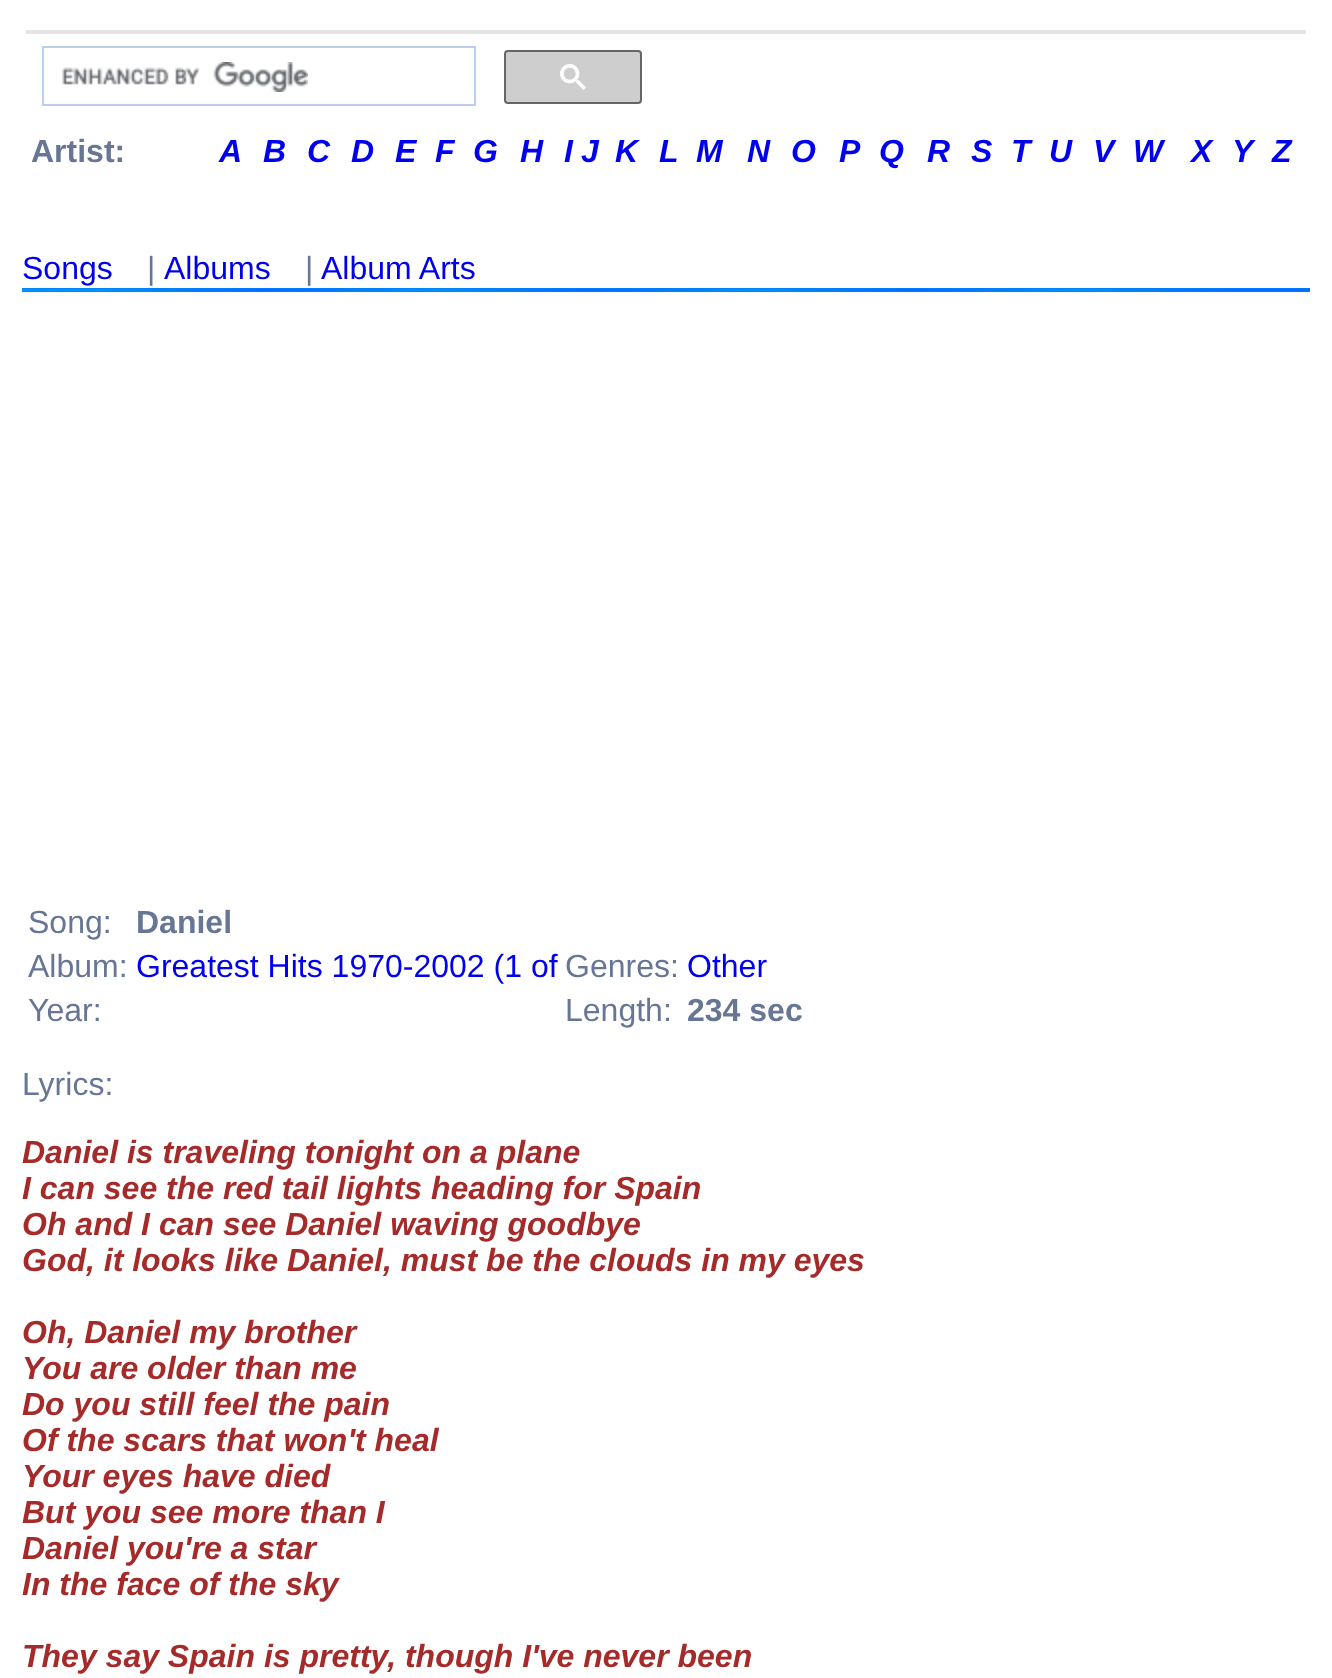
<svg xmlns="http://www.w3.org/2000/svg" width="1332" height="1678">
<rect width="100%" height="100%" fill="#fff"/>
<rect x="26" y="30" width="1280" height="4" fill="#e4e4e4"/>
<rect x="43" y="47" width="432" height="58" fill="none" stroke="#bccdf0" stroke-width="2"/>
<image x="62" y="62" width="246" height="30" href="media/1.png"/>
<rect x="505" y="51" width="136" height="52" rx="3" fill="#cecece" stroke="#666" stroke-width="2"/>
<image x="560" y="64" width="26" height="26" href="media/2.png"/>
<text x="31" y="162" style="font-family:Liberation Sans;font-size:32px;font-weight:bold;fill:#677695">Artist:</text>
<text x="219" y="162" style="font-family:Liberation Sans;font-size:32px;font-weight:bold;font-style:italic;fill:#00e">A</text>
<text x="263" y="162" style="font-family:Liberation Sans;font-size:32px;font-weight:bold;font-style:italic;fill:#00e">B</text>
<text x="307" y="162" style="font-family:Liberation Sans;font-size:32px;font-weight:bold;font-style:italic;fill:#00e">C</text>
<text x="351" y="162" style="font-family:Liberation Sans;font-size:32px;font-weight:bold;font-style:italic;fill:#00e">D</text>
<text x="395" y="162" style="font-family:Liberation Sans;font-size:32px;font-weight:bold;font-style:italic;fill:#00e">E</text>
<text x="435" y="162" style="font-family:Liberation Sans;font-size:32px;font-weight:bold;font-style:italic;fill:#00e">F</text>
<text x="473" y="162" style="font-family:Liberation Sans;font-size:32px;font-weight:bold;font-style:italic;fill:#00e">G</text>
<text x="520" y="162" style="font-family:Liberation Sans;font-size:32px;font-weight:bold;font-style:italic;fill:#00e">H</text>
<text x="564" y="162" style="font-family:Liberation Sans;font-size:32px;font-weight:bold;font-style:italic;fill:#00e">I</text>
<text x="581" y="162" style="font-family:Liberation Sans;font-size:32px;font-weight:bold;font-style:italic;fill:#00e">J</text>
<text x="615" y="162" style="font-family:Liberation Sans;font-size:32px;font-weight:bold;font-style:italic;fill:#00e">K</text>
<text x="659" y="162" style="font-family:Liberation Sans;font-size:32px;font-weight:bold;font-style:italic;fill:#00e">L</text>
<text x="696" y="162" style="font-family:Liberation Sans;font-size:32px;font-weight:bold;font-style:italic;fill:#00e">M</text>
<text x="747" y="162" style="font-family:Liberation Sans;font-size:32px;font-weight:bold;font-style:italic;fill:#00e">N</text>
<text x="791" y="162" style="font-family:Liberation Sans;font-size:32px;font-weight:bold;font-style:italic;fill:#00e">O</text>
<text x="839" y="162" style="font-family:Liberation Sans;font-size:32px;font-weight:bold;font-style:italic;fill:#00e">P</text>
<text x="879" y="162" style="font-family:Liberation Sans;font-size:32px;font-weight:bold;font-style:italic;fill:#00e">Q</text>
<text x="927" y="162" style="font-family:Liberation Sans;font-size:32px;font-weight:bold;font-style:italic;fill:#00e">R</text>
<text x="971" y="162" style="font-family:Liberation Sans;font-size:32px;font-weight:bold;font-style:italic;fill:#00e">S</text>
<text x="1011" y="162" style="font-family:Liberation Sans;font-size:32px;font-weight:bold;font-style:italic;fill:#00e">T</text>
<text x="1049" y="162" style="font-family:Liberation Sans;font-size:32px;font-weight:bold;font-style:italic;fill:#00e">U</text>
<text x="1093" y="162" style="font-family:Liberation Sans;font-size:32px;font-weight:bold;font-style:italic;fill:#00e">V</text>
<text x="1133" y="162" style="font-family:Liberation Sans;font-size:32px;font-weight:bold;font-style:italic;fill:#00e">W</text>
<text x="1191" y="162" style="font-family:Liberation Sans;font-size:32px;font-weight:bold;font-style:italic;fill:#00e">X</text>
<text x="1232" y="162" style="font-family:Liberation Sans;font-size:32px;font-weight:bold;font-style:italic;fill:#00e">Y</text>
<text x="1272" y="162" style="font-family:Liberation Sans;font-size:32px;font-weight:bold;font-style:italic;fill:#00e">Z</text>
<text x="22" y="279" style="font-family:Liberation Sans;font-size:32px;fill:#00e">Songs</text>
<text x="147" y="279" style="font-family:Liberation Sans;font-size:32px;fill:#677695">|</text>
<text x="164" y="279" style="font-family:Liberation Sans;font-size:32px;fill:#00e">Albums</text>
<text x="305" y="279" style="font-family:Liberation Sans;font-size:32px;fill:#677695">|</text>
<text x="321" y="279" style="font-family:Liberation Sans;font-size:32px;fill:#00e">Album Arts</text>
<image x="22" y="288" width="1288" height="4" href="media/3.png"/>
<text x="28" y="933" style="font-family:Liberation Sans;font-size:32px;fill:#677695">Song:</text>
<text x="136" y="933" style="font-family:Liberation Sans;font-size:32px;font-weight:bold;fill:#677695">Daniel</text>
<text x="28" y="977" style="font-family:Liberation Sans;font-size:32px;fill:#677695">Album:</text>
<text x="136" y="977" style="font-family:Liberation Sans;font-size:32px;fill:#00e">Greatest Hits 1970-2002 (1 of</text>
<text x="565" y="977" style="font-family:Liberation Sans;font-size:32px;fill:#677695">Genres:</text>
<text x="687" y="977" style="font-family:Liberation Sans;font-size:32px;fill:#00e">Other</text>
<text x="28" y="1021" style="font-family:Liberation Sans;font-size:32px;fill:#677695">Year:</text>
<text x="565" y="1021" style="font-family:Liberation Sans;font-size:32px;fill:#677695">Length:</text>
<text x="687" y="1021" style="font-family:Liberation Sans;font-size:32px;font-weight:bold;fill:#677695">234 sec</text>
<text x="22" y="1095" style="font-family:Liberation Sans;font-size:32px;fill:#677695">Lyrics:</text>
<text x="22" y="1163" style="font-family:Liberation Sans;font-size:32px;font-weight:bold;font-style:italic;fill:#a52a2a">Daniel is traveling tonight on a plane</text>
<text x="22" y="1199" style="font-family:Liberation Sans;font-size:32px;font-weight:bold;font-style:italic;fill:#a52a2a">I can see the red tail lights heading for Spain</text>
<text x="22" y="1235" style="font-family:Liberation Sans;font-size:32px;font-weight:bold;font-style:italic;fill:#a52a2a">Oh and I can see Daniel waving goodbye</text>
<text x="22" y="1271" style="font-family:Liberation Sans;font-size:32px;font-weight:bold;font-style:italic;fill:#a52a2a">God, it looks like Daniel, must be the clouds in my eyes</text>
<text x="22" y="1343" style="font-family:Liberation Sans;font-size:32px;font-weight:bold;font-style:italic;fill:#a52a2a">Oh, Daniel my brother</text>
<text x="22" y="1379" style="font-family:Liberation Sans;font-size:32px;font-weight:bold;font-style:italic;fill:#a52a2a">You are older than me</text>
<text x="22" y="1415" style="font-family:Liberation Sans;font-size:32px;font-weight:bold;font-style:italic;fill:#a52a2a">Do you still feel the pain</text>
<text x="22" y="1451" style="font-family:Liberation Sans;font-size:32px;font-weight:bold;font-style:italic;fill:#a52a2a">Of the scars that won't heal</text>
<text x="22" y="1487" style="font-family:Liberation Sans;font-size:32px;font-weight:bold;font-style:italic;fill:#a52a2a">Your eyes have died</text>
<text x="22" y="1523" style="font-family:Liberation Sans;font-size:32px;font-weight:bold;font-style:italic;fill:#a52a2a">But you see more than I</text>
<text x="22" y="1559" style="font-family:Liberation Sans;font-size:32px;font-weight:bold;font-style:italic;fill:#a52a2a">Daniel you're a star</text>
<text x="22" y="1595" style="font-family:Liberation Sans;font-size:32px;font-weight:bold;font-style:italic;fill:#a52a2a">In the face of the sky</text>
<text x="22" y="1667" style="font-family:Liberation Sans;font-size:32px;font-weight:bold;font-style:italic;fill:#a52a2a">They say Spain is pretty, though I've never been</text>
</svg>
